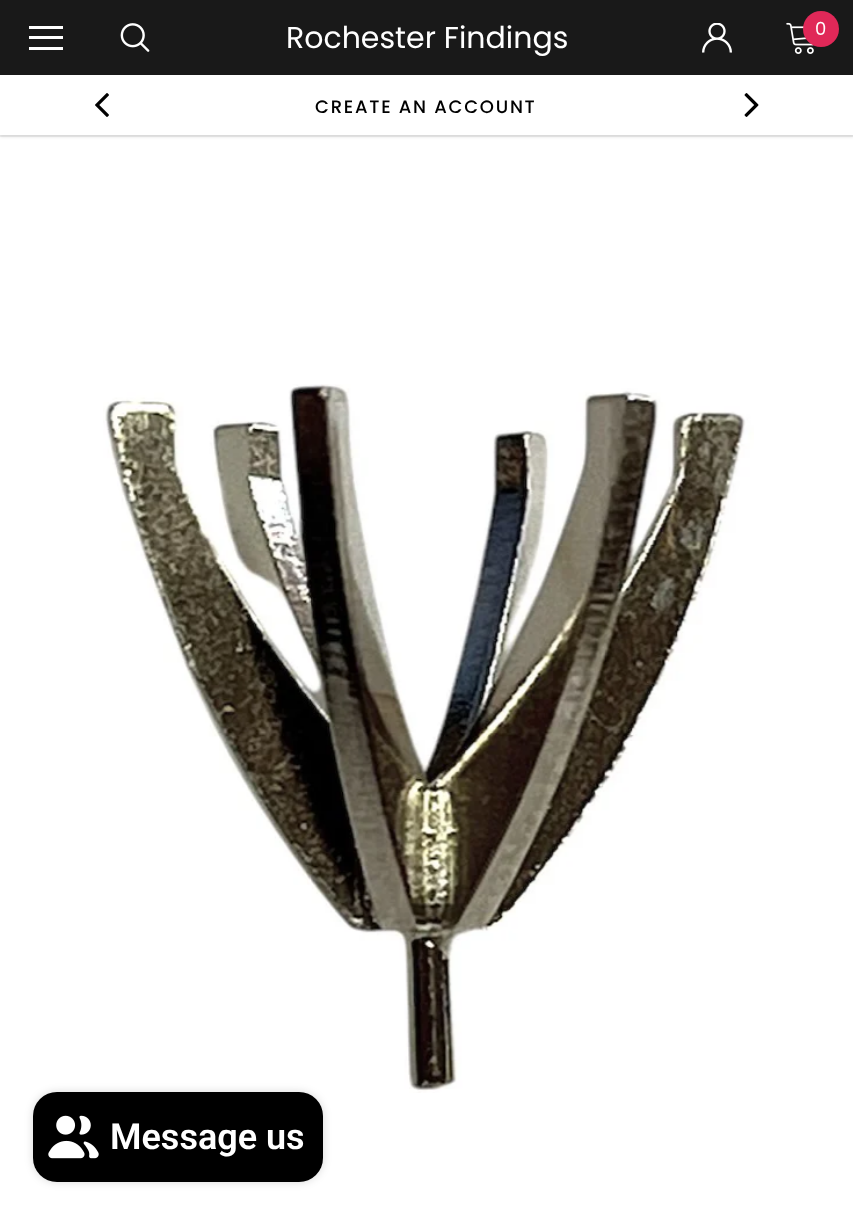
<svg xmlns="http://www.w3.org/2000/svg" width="853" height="1213">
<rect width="100%" height="100%" fill="#fff"/>
<rect y="77" width="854" height="60" fill="#0000001a" filter="blur(1.5px)"/>
<rect x="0" y="75" width="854" height="61" fill="none" stroke="#0000000f" stroke-width="2"/>
<rect width="853" height="75" fill="#191919"/>
<rect x="29" y="36" width="34" height="3" fill="#fff"/>
<rect x="29" y="26" width="34" height="3" fill="#fff"/>
<rect x="29" y="47" width="34" height="3" fill="#fff"/>
<image x="120" y="23" width="30" height="29" href="media/1.png"/>
<text x="286" y="48" style="font-family:Poppins;font-size:30px;fill:#fff">Rochester Findings</text>
<image x="702" y="23" width="30" height="30" href="media/2.png"/>
<image x="786" y="22" width="28" height="32" href="media/3.png"/>
<circle cx="821" cy="29" r="18" fill="#e02858"/>
<text x="815" y="35" style="font-family:Poppins;font-size:18px;fill:#fff">0</text>
<rect y="75" width="853" height="60" fill="#fff"/>
<image x="95" y="93" width="14" height="24" href="media/4.png"/>
<text x="315" y="113" style="font-family:Poppins;font-size:18px;font-weight:500;letter-spacing:1.75px;fill:#000">CREATE AN ACCOUNT</text>
<image x="744" y="93" width="15" height="24" href="media/5.png"/>
<image x="103" y="384" width="651" height="709" href="media/6.png"/>
<rect x="33" y="1092" width="290" height="90" rx="24" fill="#00000026" filter="blur(4px)"/>
<rect x="33" y="1092" width="290" height="90" rx="24" fill="#000"/>
<image x="48" y="1115" width="51" height="44" href="media/7.png"/>
<text x="110" y="1149" style="font-family:Roboto;font-size:36px;font-weight:600;fill:#fff">Message us</text>
</svg>
